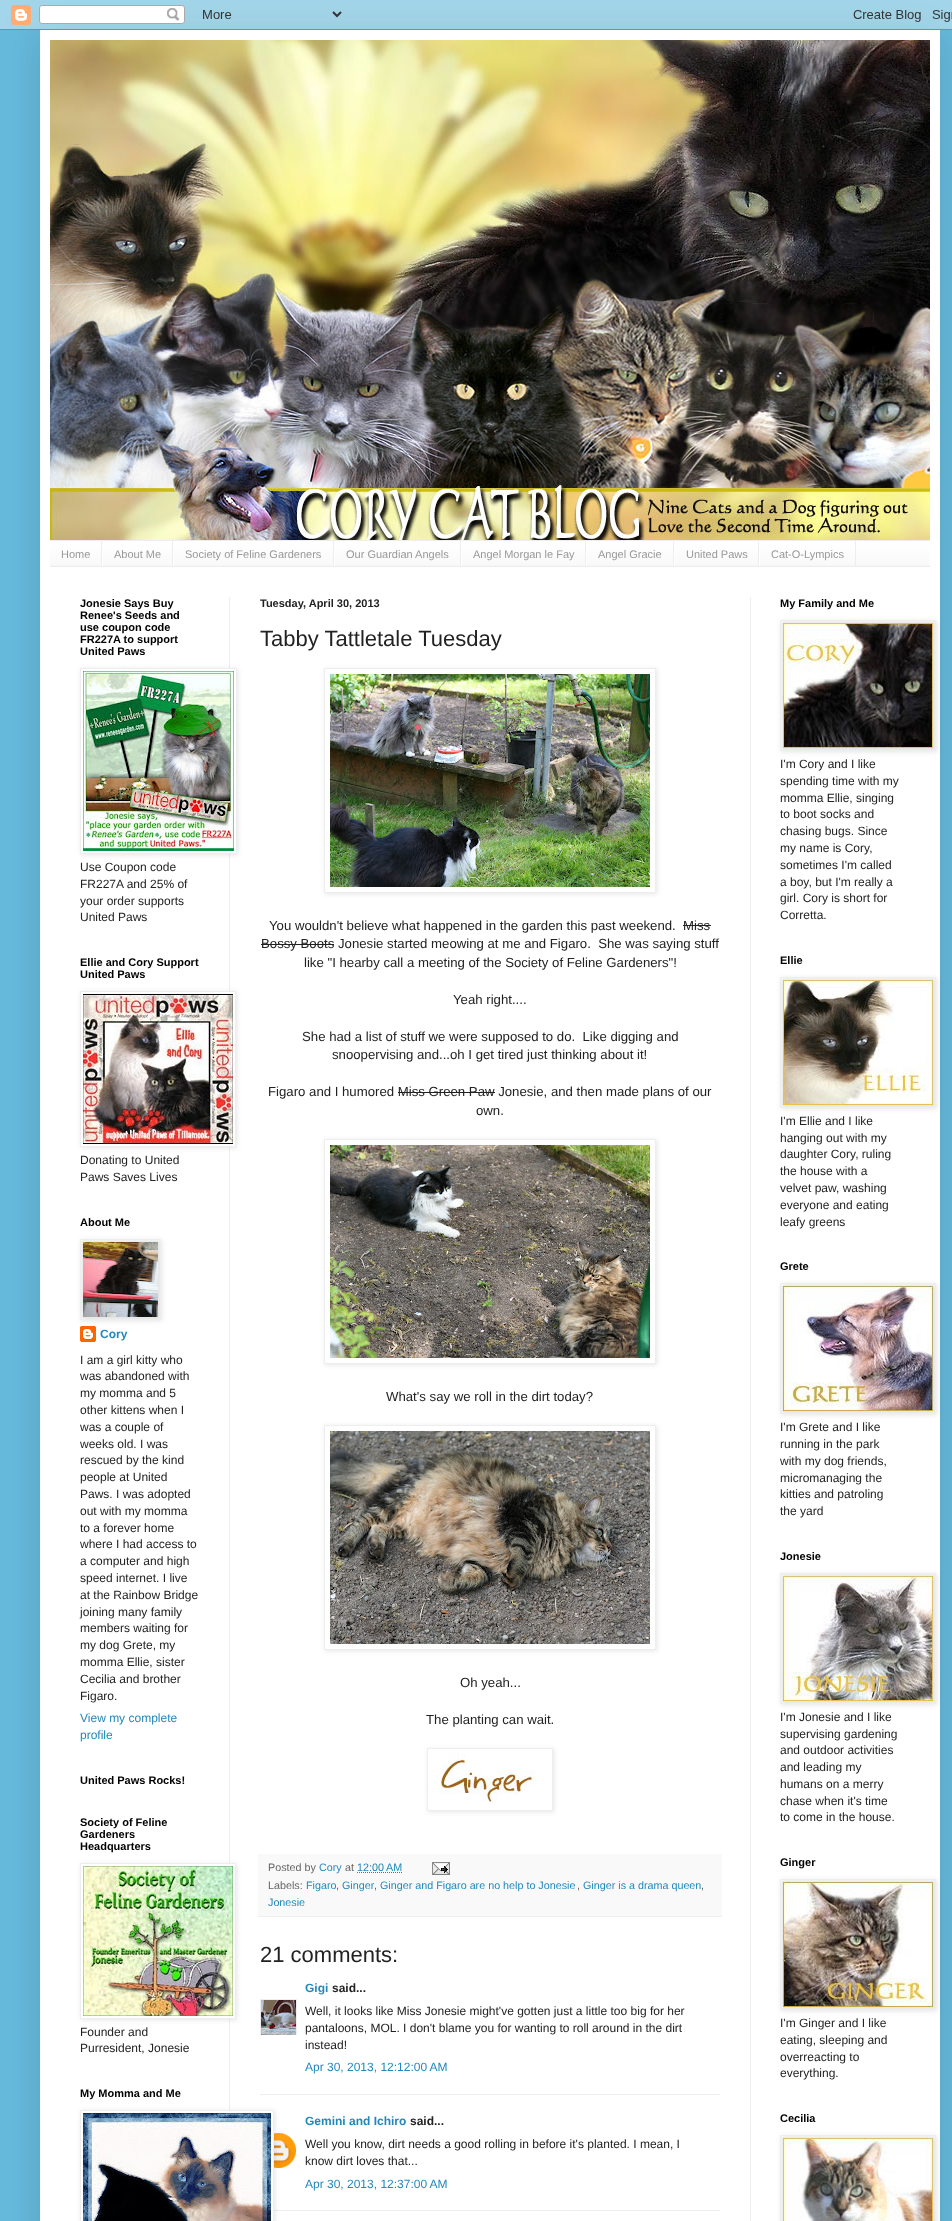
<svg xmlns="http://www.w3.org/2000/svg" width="952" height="2221">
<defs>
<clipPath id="clip1"><path d="M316 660h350v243h-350zm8 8h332v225h-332z" clip-rule="evenodd"/></clipPath>
<clipPath id="clip2"><path d="M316 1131h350v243h-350zm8 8h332v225h-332z" clip-rule="evenodd"/></clipPath>
<clipPath id="clip3"><path d="M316 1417h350v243h-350zm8 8h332v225h-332z" clip-rule="evenodd"/></clipPath>
<clipPath id="clip4"><path d="M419 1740h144v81h-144zm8 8h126v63h-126z" clip-rule="evenodd"/></clipPath>
<clipPath id="clip5"><rect x="260" y="1999" width="37" height="36"/></clipPath>
</defs>
<rect width="100%" height="100%" fill="#6bd"/>
<rect x="40" y="30" width="900" height="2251" fill="#00000026" filter="blur(20px)"/>
<image x="0" y="0" width="952" height="30" href="media/1.png"/>
<rect x="40" y="30" width="900" height="2191" fill="#fff"/>
<image x="50" y="40" width="880" height="500" href="media/2.png"/>
<rect x="50" y="542" width="880" height="24" fill="#f5f5f5"/>
<image x="50" y="541" width="880" height="24" href="media/3.png"/>
<rect x="50" y="540" width="880" height="1" fill="#eee"/>
<rect x="50" y="566" width="880" height="1" fill="#eee"/>
<rect x="101" y="541" width="1" height="25" fill="#eee"/>
<text x="61" y="558" style="font-family:Liberation Sans;font-size:11px;fill:#999">Home</text>
<rect x="172" y="541" width="1" height="25" fill="#eee"/>
<rect x="102" y="552" width="1" height="14" fill="#fff"/>
<text x="114" y="558" style="font-family:Liberation Sans;font-size:11px;fill:#999">About Me</text>
<rect x="333" y="541" width="1" height="25" fill="#eee"/>
<rect x="173" y="552" width="1" height="14" fill="#fff"/>
<text x="185" y="558" style="font-family:Liberation Sans;font-size:11px;fill:#999">Society of Feline Gardeners</text>
<rect x="460" y="541" width="1" height="25" fill="#eee"/>
<rect x="334" y="552" width="1" height="14" fill="#fff"/>
<text x="346" y="558" style="font-family:Liberation Sans;font-size:11px;fill:#999">Our Guardian Angels</text>
<rect x="585" y="541" width="1" height="25" fill="#eee"/>
<rect x="461" y="552" width="1" height="14" fill="#fff"/>
<text x="473" y="558" style="font-family:Liberation Sans;font-size:11px;fill:#999">Angel Morgan le Fay</text>
<rect x="673" y="541" width="1" height="25" fill="#eee"/>
<rect x="586" y="552" width="1" height="14" fill="#fff"/>
<text x="598" y="558" style="font-family:Liberation Sans;font-size:11px;fill:#999">Angel Gracie</text>
<rect x="758" y="541" width="1" height="25" fill="#eee"/>
<rect x="674" y="552" width="1" height="14" fill="#fff"/>
<text x="686" y="558" style="font-family:Liberation Sans;font-size:11px;fill:#999">United Paws</text>
<rect x="855" y="541" width="1" height="25" fill="#eee"/>
<rect x="759" y="552" width="1" height="14" fill="#fff"/>
<text x="771" y="558" style="font-family:Liberation Sans;font-size:11px;fill:#999">Cat-O-Lympics</text>
<rect x="229" y="597" width="1" height="1513" fill="#eee"/>
<rect x="750" y="597" width="1" height="1624" fill="#eee"/>
<text x="80" y="607" style="font-family:Liberation Sans;font-size:11px;font-weight:bold;fill:#000">Jonesie Says Buy</text>
<text x="80" y="619" style="font-family:Liberation Sans;font-size:11px;font-weight:bold;fill:#000">Renee's Seeds and</text>
<text x="80" y="631" style="font-family:Liberation Sans;font-size:11px;font-weight:bold;fill:#000">use coupon code</text>
<text x="80" y="643" style="font-family:Liberation Sans;font-size:11px;font-weight:bold;fill:#000">FR227A to support</text>
<text x="80" y="655" style="font-family:Liberation Sans;font-size:11px;font-weight:bold;fill:#000">United Paws</text>
<rect x="81" y="669" width="157" height="186" fill="#0000001a" filter="blur(2.5px)"/>
<rect x="80.5" y="668.5" width="156" height="185" fill="#fff" stroke="#eee"/>
<image x="83" y="671" width="151" height="180" href="media/4.png"/>
<text x="80" y="871" style="font-family:Liberation Sans;font-size:12px;fill:#222">Use Coupon code</text>
<text x="80" y="888" style="font-family:Liberation Sans;font-size:12px;fill:#222">FR227A and 25% of</text>
<text x="80" y="905" style="font-family:Liberation Sans;font-size:12px;fill:#222">your order supports</text>
<text x="80" y="921" style="font-family:Liberation Sans;font-size:12px;fill:#222">United Paws</text>
<text x="80" y="966" style="font-family:Liberation Sans;font-size:11px;font-weight:bold;fill:#000">Ellie and Cory Support</text>
<text x="80" y="978" style="font-family:Liberation Sans;font-size:11px;font-weight:bold;fill:#000">United Paws</text>
<rect x="81" y="992" width="156" height="156" fill="#0000001a" filter="blur(2.5px)"/>
<rect x="80.5" y="991.5" width="155" height="155" fill="#fff" stroke="#eee"/>
<image x="83" y="994" width="150" height="150" href="media/5.png"/>
<text x="80" y="1164" style="font-family:Liberation Sans;font-size:12px;fill:#222">Donating to United</text>
<text x="80" y="1181" style="font-family:Liberation Sans;font-size:12px;fill:#222">Paws Saves Lives</text>
<text x="80" y="1226" style="font-family:Liberation Sans;font-size:11px;font-weight:bold;fill:#000">About Me</text>
<image x="80" y="1326" width="16" height="16" href="media/7.png"/>
<rect x="81" y="1240" width="81" height="81" fill="#0000001a" filter="blur(2.5px)"/>
<rect x="80.5" y="1239.5" width="80" height="80" fill="none" stroke="#eee"/>
<image x="83" y="1242" width="75" height="75" href="media/6.png"/>
<text x="100" y="1338" style="font-family:Liberation Sans;font-size:12px;font-weight:bold;fill:#28b">Cory</text>
<text x="80" y="1364" style="font-family:Liberation Sans;font-size:12px;fill:#222">I am a girl kitty who</text>
<text x="80" y="1380" style="font-family:Liberation Sans;font-size:12px;fill:#222">was abandoned with</text>
<text x="80" y="1397" style="font-family:Liberation Sans;font-size:12px;fill:#222">my momma and 5</text>
<text x="80" y="1414" style="font-family:Liberation Sans;font-size:12px;fill:#222">other kittens when I</text>
<text x="80" y="1431" style="font-family:Liberation Sans;font-size:12px;fill:#222">was a couple of</text>
<text x="80" y="1448" style="font-family:Liberation Sans;font-size:12px;fill:#222">weeks old. I was</text>
<text x="80" y="1464" style="font-family:Liberation Sans;font-size:12px;fill:#222">rescued by the kind</text>
<text x="80" y="1481" style="font-family:Liberation Sans;font-size:12px;fill:#222">people at United</text>
<text x="80" y="1498" style="font-family:Liberation Sans;font-size:12px;fill:#222">Paws. I was adopted</text>
<text x="80" y="1515" style="font-family:Liberation Sans;font-size:12px;fill:#222">out with my momma</text>
<text x="80" y="1532" style="font-family:Liberation Sans;font-size:12px;fill:#222">to a forever home</text>
<text x="80" y="1548" style="font-family:Liberation Sans;font-size:12px;fill:#222">where I had access to</text>
<text x="80" y="1565" style="font-family:Liberation Sans;font-size:12px;fill:#222">a computer and high</text>
<text x="80" y="1582" style="font-family:Liberation Sans;font-size:12px;fill:#222">speed internet. I live</text>
<text x="80" y="1599" style="font-family:Liberation Sans;font-size:12px;fill:#222">at the Rainbow Bridge</text>
<text x="80" y="1616" style="font-family:Liberation Sans;font-size:12px;fill:#222">joining many family</text>
<text x="80" y="1632" style="font-family:Liberation Sans;font-size:12px;fill:#222">members waiting for</text>
<text x="80" y="1649" style="font-family:Liberation Sans;font-size:12px;fill:#222">my dog Grete, my</text>
<text x="80" y="1666" style="font-family:Liberation Sans;font-size:12px;fill:#222">momma Ellie, sister</text>
<text x="80" y="1683" style="font-family:Liberation Sans;font-size:12px;fill:#222">Cecilia and brother</text>
<text x="80" y="1700" style="font-family:Liberation Sans;font-size:12px;fill:#222">Figaro.</text>
<text x="80" y="1722" style="font-family:Liberation Sans;font-size:12px;fill:#28b">View my complete</text>
<text x="80" y="1739" style="font-family:Liberation Sans;font-size:12px;fill:#28b">profile</text>
<text x="80" y="1784" style="font-family:Liberation Sans;font-size:11px;font-weight:bold;fill:#000">United Paws Rocks!</text>
<text x="80" y="1826" style="font-family:Liberation Sans;font-size:11px;font-weight:bold;fill:#000">Society of Feline</text>
<text x="80" y="1838" style="font-family:Liberation Sans;font-size:11px;font-weight:bold;fill:#000">Gardeners</text>
<text x="80" y="1850" style="font-family:Liberation Sans;font-size:11px;font-weight:bold;fill:#000">Headquarters</text>
<rect x="81" y="1864" width="156" height="156" fill="#0000001a" filter="blur(2.5px)"/>
<rect x="80.5" y="1863.5" width="155" height="155" fill="#fff" stroke="#eee"/>
<image x="83" y="1866" width="150" height="150" href="media/8.png"/>
<text x="80" y="2036" style="font-family:Liberation Sans;font-size:12px;fill:#222">Founder and</text>
<text x="80" y="2052" style="font-family:Liberation Sans;font-size:12px;fill:#222">Purresident, Jonesie</text>
<text x="80" y="2097" style="font-family:Liberation Sans;font-size:11px;font-weight:bold;fill:#000">My Momma and Me</text>
<image x="274" y="2133" width="22" height="35" href="media/16.png"/>
<rect x="274" y="2210" width="446" height="1" fill="#eee"/>
<rect x="81" y="2111" width="194" height="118" fill="#0000001a" filter="blur(2.5px)"/>
<rect x="80.5" y="2110.5" width="193" height="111" fill="#fff" stroke="#eee"/>
<image x="83" y="2113" width="188" height="108" href="media/9.png"/>
<text x="260" y="607" style="font-family:Liberation Sans;font-size:11px;font-weight:bold;fill:#222">Tuesday, April 30, 2013</text>
<text x="260" y="646" style="font-family:Liberation Sans;font-size:22px;fill:#222">Tabby Tattletale Tuesday</text>
<g clip-path="url(#clip1)">
<rect x="325" y="669" width="332" height="225" fill="#0000001a" filter="blur(2.5px)"/>
</g>
<rect x="324.5" y="668.5" width="331" height="224" fill="none" stroke="#eee"/>
<image x="330" y="674" width="320" height="213" href="media/10.png"/>
<text x="269" y="930" style="font-family:Liberation Sans;font-size:13.2px;fill:#222">You wouldn't believe what happened in the garden this past weekend.</text>
<text x="683" y="930" style="font-family:Liberation Sans;font-size:13.2px;fill:#222">Miss</text>
<rect x="683" y="925" width="28" height="1" fill="#222"/>
<text x="261" y="948" style="font-family:Liberation Sans;font-size:13.2px;fill:#222" xml:space="preserve">Bossy Boots Jonesie started meowing at me and Figaro.  She was saying stuff</text>
<rect x="261" y="944" width="73" height="1" fill="#222"/>
<text x="304" y="967" style="font-family:Liberation Sans;font-size:13.2px;fill:#222">like "I hearby call a meeting of the Society of Feline Gardeners"!</text>
<text x="453" y="1004" style="font-family:Liberation Sans;font-size:13.2px;fill:#222">Yeah right....</text>
<text x="302" y="1041" style="font-family:Liberation Sans;font-size:13.2px;fill:#222" xml:space="preserve">She had a list of stuff we were supposed to do.  Like digging and</text>
<text x="332" y="1059" style="font-family:Liberation Sans;font-size:13.2px;fill:#222">snoopervising and...oh I get tired just thinking about it!</text>
<text x="268" y="1096" style="font-family:Liberation Sans;font-size:13.2px;fill:#222">Figaro and I humored Miss Green Paw Jonesie, and then made plans of our</text>
<rect x="398" y="1092" width="97" height="1" fill="#222"/>
<text x="476" y="1115" style="font-family:Liberation Sans;font-size:13.2px;fill:#222">own.</text>
<g clip-path="url(#clip2)">
<rect x="325" y="1140" width="332" height="225" fill="#0000001a" filter="blur(2.5px)"/>
</g>
<rect x="324.5" y="1139.5" width="331" height="224" fill="none" stroke="#eee"/>
<image x="330" y="1145" width="320" height="213" href="media/11.png"/>
<text x="386" y="1401" style="font-family:Liberation Sans;font-size:13.2px;fill:#222">What's say we roll in the dirt today?</text>
<g clip-path="url(#clip3)">
<rect x="325" y="1426" width="332" height="225" fill="#0000001a" filter="blur(2.5px)"/>
</g>
<rect x="324.5" y="1425.5" width="331" height="224" fill="none" stroke="#eee"/>
<image x="330" y="1431" width="320" height="213" href="media/12.png"/>
<text x="460" y="1687" style="font-family:Liberation Sans;font-size:13.2px;fill:#222">Oh yeah...</text>
<text x="426" y="1724" style="font-family:Liberation Sans;font-size:13.2px;fill:#222">The planting can wait.</text>
<g clip-path="url(#clip4)">
<rect x="428" y="1749" width="126" height="63" fill="#0000001a" filter="blur(2.5px)"/>
</g>
<rect x="427.5" y="1748.5" width="125" height="62" fill="none" stroke="#eee"/>
<image x="441" y="1754" width="96" height="48" href="media/13.png"/>
<rect x="258" y="1854" width="464" height="62" fill="#f9f9f9"/>
<rect x="258" y="1916" width="464" height="1" fill="#eee"/>
<text x="268" y="1871" style="font-family:Liberation Sans;font-size:10.75px;fill:#666">Posted by</text>
<text x="319" y="1871" style="font-family:Liberation Sans;font-size:10.75px;fill:#28b">Cory</text>
<text x="345" y="1871" style="font-family:Liberation Sans;font-size:10.75px;fill:#666">at</text>
<text x="357" y="1871" style="font-family:Liberation Sans;font-size:10.75px;fill:#28b">12:00 AM</text>
<path d="M357 1872.5h45" fill="none" stroke="#28b" stroke-dasharray="1 1"/>
<image x="432" y="1862" width="18" height="13" href="media/14.png"/>
<text x="268" y="1889" style="font-family:Liberation Sans;font-size:10.75px;fill:#666">Labels:</text>
<text x="306" y="1889" style="font-family:Liberation Sans;font-size:10.75px;fill:#28b">Figaro</text>
<text x="336" y="1889" style="font-family:Liberation Sans;font-size:10.75px;fill:#666">,</text>
<text x="342" y="1889" style="font-family:Liberation Sans;font-size:10.75px;fill:#28b">Ginger</text>
<text x="374" y="1889" style="font-family:Liberation Sans;font-size:10.75px;fill:#666">,</text>
<text x="380" y="1889" style="font-family:Liberation Sans;font-size:10.75px;fill:#28b">Ginger and Figaro are no help to Jonesie</text>
<text x="577" y="1889" style="font-family:Liberation Sans;font-size:10.75px;fill:#666">,</text>
<text x="583" y="1889" style="font-family:Liberation Sans;font-size:10.75px;fill:#28b">Ginger is a drama queen</text>
<text x="701" y="1889" style="font-family:Liberation Sans;font-size:10.75px;fill:#666">,</text>
<text x="268" y="1906" style="font-family:Liberation Sans;font-size:10.75px;fill:#28b">Jonesie</text>
<text x="260" y="1962" style="font-family:Liberation Sans;font-size:22px;fill:#222">21 comments:</text>
<text x="305" y="1992" style="font-family:Liberation Sans;font-size:12px;font-weight:bold;fill:#28b">Gigi</text>
<text x="332" y="1992" style="font-family:Liberation Sans;font-size:12px;font-weight:bold;fill:#222">said...</text>
<g clip-path="url(#clip5)">
<rect x="260.5" y="1999.5" width="36" height="36" fill="none" stroke="#eee"/>
</g>
<image x="261" y="2000" width="35" height="35" href="media/15.png"/>
<text x="305" y="2015" style="font-family:Liberation Sans;font-size:12px;fill:#222">Well, it looks like Miss Jonesie might've gotten just a little too big for her</text>
<text x="305" y="2032" style="font-family:Liberation Sans;font-size:12px;fill:#222">pantaloons, MOL. I don't blame you for wanting to roll around in the dirt</text>
<text x="305" y="2049" style="font-family:Liberation Sans;font-size:12px;fill:#222">instead!</text>
<text x="305" y="2071" style="font-family:Liberation Sans;font-size:12px;fill:#28b">Apr 30, 2013, 12:12:00 AM</text>
<rect x="260" y="2094" width="460" height="1" fill="#eee"/>
<text x="305" y="2125" style="font-family:Liberation Sans;font-size:12px;font-weight:bold;fill:#28b">Gemini and Ichiro</text>
<text x="410" y="2125" style="font-family:Liberation Sans;font-size:12px;font-weight:bold;fill:#222">said...</text>
<text x="305" y="2148" style="font-family:Liberation Sans;font-size:12px;fill:#222">Well you know, dirt needs a good rolling in before it's planted. I mean, I</text>
<text x="305" y="2165" style="font-family:Liberation Sans;font-size:12px;fill:#222">know dirt loves that...</text>
<text x="305" y="2188" style="font-family:Liberation Sans;font-size:12px;fill:#28b">Apr 30, 2013, 12:37:00 AM</text>
<text x="780" y="607" style="font-family:Liberation Sans;font-size:11px;font-weight:bold;fill:#000">My Family and Me</text>
<rect x="781" y="621" width="156" height="131" fill="#0000001a" filter="blur(2.5px)"/>
<rect x="780.5" y="620.5" width="155" height="130" fill="none" stroke="#eee"/>
<image x="783" y="623" width="150" height="125" href="media/17.png"/>
<text x="780" y="768" style="font-family:Liberation Sans;font-size:12px;fill:#222">I'm Cory and I like</text>
<text x="780" y="785" style="font-family:Liberation Sans;font-size:12px;fill:#222">spending time with my</text>
<text x="780" y="802" style="font-family:Liberation Sans;font-size:12px;fill:#222">momma Ellie, singing</text>
<text x="780" y="818" style="font-family:Liberation Sans;font-size:12px;fill:#222">to boot socks and</text>
<text x="780" y="835" style="font-family:Liberation Sans;font-size:12px;fill:#222">chasing bugs. Since</text>
<text x="780" y="852" style="font-family:Liberation Sans;font-size:12px;fill:#222">my name is Cory,</text>
<text x="780" y="869" style="font-family:Liberation Sans;font-size:12px;fill:#222">sometimes I'm called</text>
<text x="780" y="886" style="font-family:Liberation Sans;font-size:12px;fill:#222">a boy, but I'm really a</text>
<text x="780" y="902" style="font-family:Liberation Sans;font-size:12px;fill:#222">girl. Cory is short for</text>
<text x="780" y="919" style="font-family:Liberation Sans;font-size:12px;fill:#222">Corretta.</text>
<text x="780" y="964" style="font-family:Liberation Sans;font-size:11px;font-weight:bold;fill:#000">Ellie</text>
<rect x="781" y="978" width="156" height="131" fill="#0000001a" filter="blur(2.5px)"/>
<rect x="780.5" y="977.5" width="155" height="130" fill="none" stroke="#eee"/>
<image x="783" y="980" width="150" height="125" href="media/18.png"/>
<text x="780" y="1125" style="font-family:Liberation Sans;font-size:12px;fill:#222">I'm Ellie and I like</text>
<text x="780" y="1142" style="font-family:Liberation Sans;font-size:12px;fill:#222">hanging out with my</text>
<text x="780" y="1158" style="font-family:Liberation Sans;font-size:12px;fill:#222">daughter Cory, ruling</text>
<text x="780" y="1175" style="font-family:Liberation Sans;font-size:12px;fill:#222">the house with a</text>
<text x="780" y="1192" style="font-family:Liberation Sans;font-size:12px;fill:#222">velvet paw, washing</text>
<text x="780" y="1209" style="font-family:Liberation Sans;font-size:12px;fill:#222">everyone and eating</text>
<text x="780" y="1226" style="font-family:Liberation Sans;font-size:12px;fill:#222">leafy greens</text>
<text x="780" y="1270" style="font-family:Liberation Sans;font-size:11px;font-weight:bold;fill:#000">Grete</text>
<rect x="781" y="1284" width="156" height="131" fill="#0000001a" filter="blur(2.5px)"/>
<rect x="780.5" y="1283.5" width="155" height="130" fill="none" stroke="#eee"/>
<image x="783" y="1286" width="150" height="125" href="media/19.png"/>
<text x="780" y="1431" style="font-family:Liberation Sans;font-size:12px;fill:#222">I'm Grete and I like</text>
<text x="780" y="1448" style="font-family:Liberation Sans;font-size:12px;fill:#222">running in the park</text>
<text x="780" y="1465" style="font-family:Liberation Sans;font-size:12px;fill:#222">with my dog friends,</text>
<text x="780" y="1482" style="font-family:Liberation Sans;font-size:12px;fill:#222">micromanaging the</text>
<text x="780" y="1498" style="font-family:Liberation Sans;font-size:12px;fill:#222">kitties and patroling</text>
<text x="780" y="1515" style="font-family:Liberation Sans;font-size:12px;fill:#222">the yard</text>
<text x="780" y="1560" style="font-family:Liberation Sans;font-size:11px;font-weight:bold;fill:#000">Jonesie</text>
<rect x="781" y="1574" width="156" height="131" fill="#0000001a" filter="blur(2.5px)"/>
<rect x="780.5" y="1573.5" width="155" height="130" fill="none" stroke="#eee"/>
<image x="783" y="1576" width="150" height="125" href="media/20.png"/>
<text x="780" y="1721" style="font-family:Liberation Sans;font-size:12px;fill:#222">I'm Jonesie and I like</text>
<text x="780" y="1738" style="font-family:Liberation Sans;font-size:12px;fill:#222">supervising gardening</text>
<text x="780" y="1754" style="font-family:Liberation Sans;font-size:12px;fill:#222">and outdoor activities</text>
<text x="780" y="1771" style="font-family:Liberation Sans;font-size:12px;fill:#222">and leading my</text>
<text x="780" y="1788" style="font-family:Liberation Sans;font-size:12px;fill:#222">humans on a merry</text>
<text x="780" y="1805" style="font-family:Liberation Sans;font-size:12px;fill:#222">chase when it's time</text>
<text x="780" y="1821" style="font-family:Liberation Sans;font-size:12px;fill:#222">to come in the house.</text>
<text x="780" y="1866" style="font-family:Liberation Sans;font-size:11px;font-weight:bold;fill:#000">Ginger</text>
<rect x="781" y="1880" width="156" height="131" fill="#0000001a" filter="blur(2.5px)"/>
<rect x="780.5" y="1879.5" width="155" height="130" fill="none" stroke="#eee"/>
<image x="783" y="1882" width="150" height="125" href="media/21.png"/>
<text x="780" y="2027" style="font-family:Liberation Sans;font-size:12px;fill:#222">I'm Ginger and I like</text>
<text x="780" y="2044" style="font-family:Liberation Sans;font-size:12px;fill:#222">eating, sleeping and</text>
<text x="780" y="2061" style="font-family:Liberation Sans;font-size:12px;fill:#222">overreacting to</text>
<text x="780" y="2077" style="font-family:Liberation Sans;font-size:12px;fill:#222">everything.</text>
<text x="780" y="2122" style="font-family:Liberation Sans;font-size:11px;font-weight:bold;fill:#000">Cecilia</text>
<rect x="781" y="2136" width="156" height="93" fill="#0000001a" filter="blur(2.5px)"/>
<rect x="780.5" y="2135.5" width="155" height="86" fill="none" stroke="#eee"/>
<image x="783" y="2138" width="150" height="83" href="media/22.png"/>
</svg>
